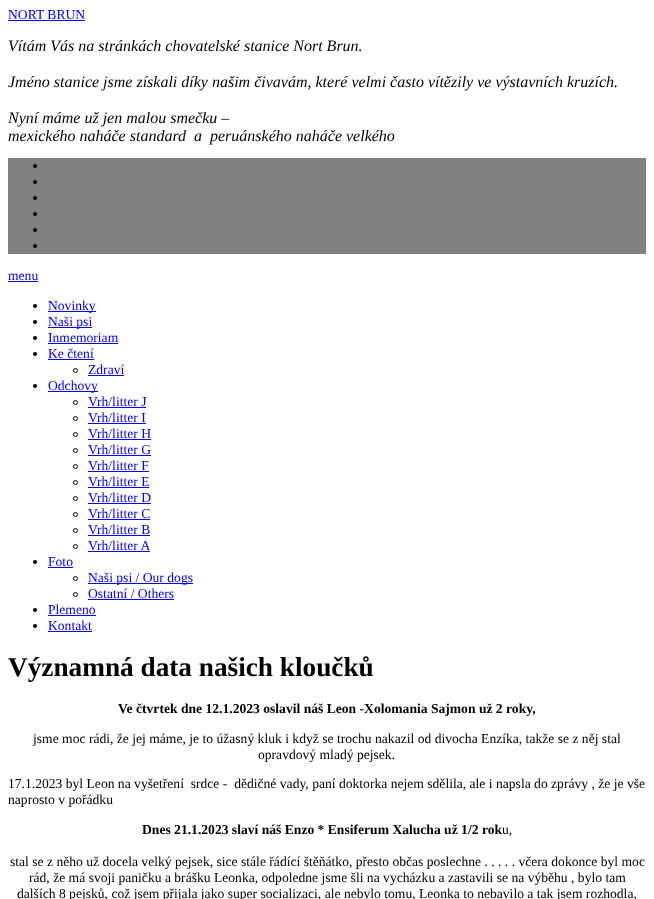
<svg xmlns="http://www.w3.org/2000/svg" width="654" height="899">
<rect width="100%" height="100%" fill="#fff"/>
<text x="8" y="19" style="font-family:Liberation Serif;font-size:13.6px;fill:#00e">NORT BRUN</text>
<rect x="8" y="20" width="77" height="1" fill="#00e"/>
<text x="8" y="51" style="font-family:Liberation Serif;font-size:16px;font-style:italic;fill:#000">Vítám Vás na stránkách chovatelské stanice Nort Brun.</text>
<text x="8" y="87" style="font-family:Liberation Serif;font-size:16px;font-style:italic;fill:#000">Jméno stanice jsme získali díky našim čivavám, které velmi často vítězily ve výstavních kruzích.</text>
<text x="8" y="123" style="font-family:Liberation Serif;font-size:16px;font-style:italic;fill:#000">Nyní máme už jen malou smečku –</text>
<text x="8" y="141" style="font-family:Liberation Serif;font-size:16px;font-style:italic;fill:#000" xml:space="preserve">mexického naháče standard  a  peruánského naháče velkého</text>
<rect x="8" y="158" width="638" height="96" fill="#808080"/>
<circle cx="35" cy="166" r="2" fill="#000"/>
<circle cx="35" cy="182" r="2" fill="#000"/>
<circle cx="35" cy="198" r="2" fill="#000"/>
<circle cx="35" cy="214" r="2" fill="#000"/>
<circle cx="35" cy="230" r="2" fill="#000"/>
<circle cx="35" cy="246" r="2" fill="#000"/>
<text x="8" y="280" style="font-family:Liberation Serif;font-size:13.6px;fill:#00e">menu</text>
<rect x="8" y="281" width="30" height="1" fill="#00e"/>
<circle cx="35" cy="306" r="2" fill="#000"/>
<rect x="48" y="311" width="48" height="1" fill="#00e"/>
<text x="48" y="310" style="font-family:Liberation Serif;font-size:13.6px;fill:#00e">Novinky</text>
<circle cx="35" cy="322" r="2" fill="#000"/>
<rect x="48" y="327" width="44" height="1" fill="#00e"/>
<text x="48" y="326" style="font-family:Liberation Serif;font-size:13.6px;fill:#00e">Naši psi</text>
<circle cx="35" cy="338" r="2" fill="#000"/>
<text x="48" y="342" style="font-family:Liberation Serif;font-size:13.6px;fill:#00e">Inmemoriam</text>
<rect x="48" y="343" width="70" height="1" fill="#00e"/>
<circle cx="35" cy="354" r="2" fill="#000"/>
<text x="48" y="358" style="font-family:Liberation Serif;font-size:13.6px;fill:#00e">Ke čtení</text>
<rect x="48" y="359" width="46" height="1" fill="#00e"/>
<circle cx="75.5" cy="370.5" r="2" fill="none" stroke="#000"/>
<text x="88" y="374" style="font-family:Liberation Serif;font-size:13.6px;fill:#00e">Zdraví</text>
<rect x="88" y="375" width="36" height="1" fill="#00e"/>
<circle cx="35" cy="386" r="2" fill="#000"/>
<rect x="48" y="391" width="50" height="1" fill="#00e"/>
<text x="48" y="390" style="font-family:Liberation Serif;font-size:13.6px;fill:#00e">Odchovy</text>
<circle cx="75.5" cy="402.5" r="2" fill="none" stroke="#000"/>
<text x="88" y="406" style="font-family:Liberation Serif;font-size:13.6px;fill:#00e">Vrh/litter J</text>
<rect x="88" y="407" width="58" height="1" fill="#00e"/>
<circle cx="75.5" cy="418.5" r="2" fill="none" stroke="#000"/>
<text x="88" y="422" style="font-family:Liberation Serif;font-size:13.6px;fill:#00e">Vrh/litter I</text>
<rect x="88" y="423" width="58" height="1" fill="#00e"/>
<circle cx="75.5" cy="434.5" r="2" fill="none" stroke="#000"/>
<text x="88" y="438" style="font-family:Liberation Serif;font-size:13.6px;fill:#00e">Vrh/litter H</text>
<rect x="88" y="439" width="63" height="1" fill="#00e"/>
<circle cx="75.5" cy="450.5" r="2" fill="none" stroke="#000"/>
<text x="88" y="454" style="font-family:Liberation Serif;font-size:13.6px;fill:#00e">Vrh/litter G</text>
<rect x="88" y="455" width="63" height="1" fill="#00e"/>
<circle cx="75.5" cy="466.5" r="2" fill="none" stroke="#000"/>
<text x="88" y="470" style="font-family:Liberation Serif;font-size:13.6px;fill:#00e">Vrh/litter F</text>
<rect x="88" y="471" width="61" height="1" fill="#00e"/>
<circle cx="75.5" cy="482.5" r="2" fill="none" stroke="#000"/>
<text x="88" y="486" style="font-family:Liberation Serif;font-size:13.6px;fill:#00e">Vrh/litter E</text>
<rect x="88" y="487" width="61" height="1" fill="#00e"/>
<circle cx="75.5" cy="498.5" r="2" fill="none" stroke="#000"/>
<text x="88" y="502" style="font-family:Liberation Serif;font-size:13.6px;fill:#00e">Vrh/litter D</text>
<rect x="88" y="503" width="63" height="1" fill="#00e"/>
<circle cx="75.5" cy="514.5" r="2" fill="none" stroke="#000"/>
<text x="88" y="518" style="font-family:Liberation Serif;font-size:13.6px;fill:#00e">Vrh/litter C</text>
<rect x="88" y="519" width="62" height="1" fill="#00e"/>
<circle cx="75.5" cy="530.5" r="2" fill="none" stroke="#000"/>
<text x="88" y="534" style="font-family:Liberation Serif;font-size:13.6px;fill:#00e">Vrh/litter B</text>
<rect x="88" y="535" width="62" height="1" fill="#00e"/>
<circle cx="75.5" cy="546.5" r="2" fill="none" stroke="#000"/>
<text x="88" y="550" style="font-family:Liberation Serif;font-size:13.6px;fill:#00e">Vrh/litter A</text>
<rect x="88" y="551" width="62" height="1" fill="#00e"/>
<circle cx="35" cy="562" r="2" fill="#000"/>
<text x="48" y="566" style="font-family:Liberation Serif;font-size:13.6px;fill:#00e">Foto</text>
<rect x="48" y="567" width="25" height="1" fill="#00e"/>
<circle cx="75.5" cy="578.5" r="2" fill="none" stroke="#000"/>
<rect x="88" y="583" width="105" height="1" fill="#00e"/>
<text x="88" y="582" style="font-family:Liberation Serif;font-size:13.6px;fill:#00e">Naši psi / Our dogs</text>
<circle cx="75.5" cy="594.5" r="2" fill="none" stroke="#000"/>
<text x="88" y="598" style="font-family:Liberation Serif;font-size:13.6px;fill:#00e">Ostatní / Others</text>
<rect x="88" y="599" width="86" height="1" fill="#00e"/>
<circle cx="35" cy="610" r="2" fill="#000"/>
<text x="48" y="614" style="font-family:Liberation Serif;font-size:13.6px;fill:#00e">Plemeno</text>
<rect x="48" y="615" width="48" height="1" fill="#00e"/>
<circle cx="35" cy="626" r="2" fill="#000"/>
<text x="48" y="630" style="font-family:Liberation Serif;font-size:13.6px;fill:#00e">Kontakt</text>
<rect x="48" y="631" width="44" height="1" fill="#00e"/>
<text x="8" y="676" style="font-family:Liberation Serif;font-size:27.25px;font-weight:bold;fill:#000">Významná data našich kloučků</text>
<text x="118" y="713" style="font-family:Liberation Serif;font-size:13.6px;font-weight:bold;fill:#000">Ve čtvrtek dne 12.1.2023 oslavil náš Leon -Xolomania Sajmon už 2 roky,</text>
<text x="33" y="743" style="font-family:Liberation Serif;font-size:13.6px;fill:#000">jsme moc rádi, že jej máme, je to úžasný kluk i když se trochu nakazil od divocha Enzíka, takže se z něj stal</text>
<text x="258" y="759" style="font-family:Liberation Serif;font-size:13.6px;fill:#000">opravdový mladý pejsek.</text>
<text x="8" y="788" style="font-family:Liberation Serif;font-size:13.6px;fill:#000" xml:space="preserve">17.1.2023 byl Leon na vyšetření  srdce -  dědičné vady, paní doktorka nejem sdělila, ale i napsla do zprávy , že je vše</text>
<text x="8" y="804" style="font-family:Liberation Serif;font-size:13.6px;fill:#000">naprosto v pořádku</text>
<text x="142" y="834" style="font-family:Liberation Serif;font-size:13.6px;font-weight:bold;fill:#000">Dnes 21.1.2023 slaví náš Enzo * Ensiferum Xalucha už 1/2 rok</text>
<text x="502" y="834" style="font-family:Liberation Serif;font-size:13.6px;fill:#000">u,</text>
<text x="10" y="866" style="font-family:Liberation Serif;font-size:13.6px;fill:#000">stal se z něho už docela velký pejsek, sice stále řádící štěňátko, přesto občas poslechne . . . . . včera dokonce byl moc</text>
<text x="29" y="882" style="font-family:Liberation Serif;font-size:13.6px;fill:#000">rád, že má svoji paničku a brášku Leonka, odpoledne jsme šli na vycházku a zastavili se na výběhu , bylo tam</text>
<text x="17" y="898" style="font-family:Liberation Serif;font-size:13.6px;fill:#000">dalších 8 pejsků, což jsem přijala jako super socializaci, ale nebylo tomu, Leonka to nebavilo a tak jsem rozhodla,</text>
</svg>
